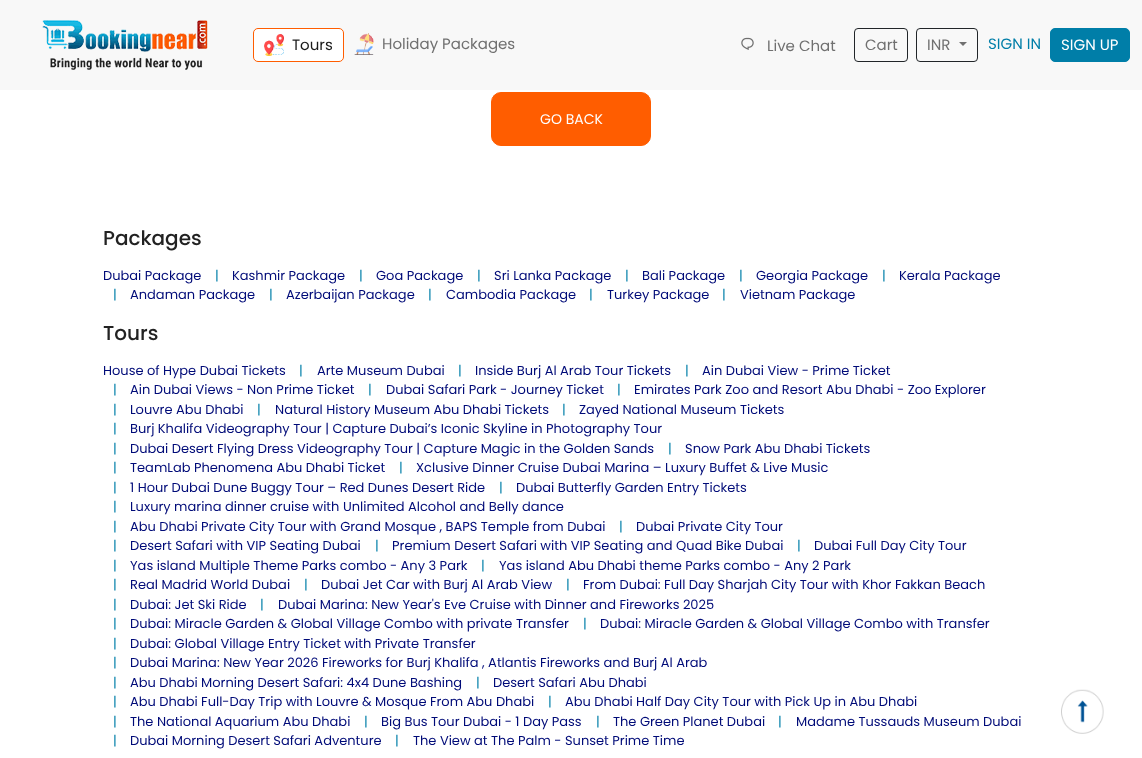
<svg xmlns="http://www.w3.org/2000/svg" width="1142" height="758">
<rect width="100%" height="100%" fill="#fff"/>
<rect width="1142" height="90" fill="#f8f8f8"/>
<image x="42" y="20" width="166" height="50" href="media/1.png"/>
<rect x="253.5" y="28.5" width="90" height="33" rx="4.5" fill="#fff" stroke="#ff5d00"/>
<image x="264" y="34" width="20" height="22" href="media/2.png"/>
<text x="292" y="50" style="font-family:Poppins;font-size:15px;fill:#1a1a1a">Tours</text>
<image x="354" y="33" width="20" height="22" href="media/3.png"/>
<text x="382" y="49" style="font-family:Poppins;font-size:15px;fill:#707070">Holiday Packages</text>
<image x="741" y="37" width="13" height="13" href="media/4.png"/>
<text x="767" y="51" style="font-family:Poppins;font-size:15px;fill:#707070">Live Chat</text>
<rect x="854.5" y="28.5" width="53" height="33" rx="3.5" fill="none" stroke="#212529"/>
<text x="865" y="50" style="font-family:Poppins;font-size:15px;fill:#707070">Cart</text>
<rect x="916.5" y="28.5" width="61" height="33" rx="3.5" fill="none" stroke="#212529"/>
<text x="927" y="50" style="font-family:Poppins;font-size:15px;fill:#707070">INR</text>
<path d="M959 42h8l-4 4z" fill="#707070"/>
<text x="988" y="49" style="font-family:Poppins;font-size:15px;fill:#007ea8">SIGN IN</text>
<rect x="1050.5" y="28.5" width="79" height="33" rx="4.5" fill="#007ea8" stroke="#007ea8"/>
<text x="1061" y="50" style="font-family:Poppins;font-size:15px;fill:#fff">SIGN UP</text>
<rect x="491.5" y="92.5" width="159" height="53" rx="9.5" fill="#ff5d00" stroke="#ff5d00"/>
<text x="540" y="124" style="font-family:Poppins;font-size:14px;fill:#fff">GO BACK</text>
<text x="103" y="245" style="font-family:Poppins;font-size:20px;font-weight:500;fill:#222">Packages</text>
<text x="103" y="280" style="font-family:Poppins;font-size:13px;fill:#000b78">Dubai Package</text>
<text x="215" y="280" style="font-family:Poppins;font-size:13px;fill:#007ea8">|</text>
<text x="232" y="280" style="font-family:Poppins;font-size:13px;fill:#000b78">Kashmir Package</text>
<text x="359" y="280" style="font-family:Poppins;font-size:13px;fill:#007ea8">|</text>
<text x="376" y="280" style="font-family:Poppins;font-size:13px;fill:#000b78">Goa Package</text>
<text x="477" y="280" style="font-family:Poppins;font-size:13px;fill:#007ea8">|</text>
<text x="494" y="280" style="font-family:Poppins;font-size:13px;fill:#000b78">Sri Lanka Package</text>
<text x="625" y="280" style="font-family:Poppins;font-size:13px;fill:#007ea8">|</text>
<text x="642" y="280" style="font-family:Poppins;font-size:13px;fill:#000b78">Bali Package</text>
<text x="739" y="280" style="font-family:Poppins;font-size:13px;fill:#007ea8">|</text>
<text x="756" y="280" style="font-family:Poppins;font-size:13px;fill:#000b78">Georgia Package</text>
<text x="882" y="280" style="font-family:Poppins;font-size:13px;fill:#007ea8">|</text>
<text x="899" y="280" style="font-family:Poppins;font-size:13px;fill:#000b78">Kerala Package</text>
<text x="113" y="299" style="font-family:Poppins;font-size:13px;fill:#007ea8">|</text>
<text x="130" y="299" style="font-family:Poppins;font-size:13px;fill:#000b78">Andaman Package</text>
<text x="269" y="299" style="font-family:Poppins;font-size:13px;fill:#007ea8">|</text>
<text x="286" y="299" style="font-family:Poppins;font-size:13px;fill:#000b78">Azerbaijan Package</text>
<text x="428" y="299" style="font-family:Poppins;font-size:13px;fill:#007ea8">|</text>
<text x="446" y="299" style="font-family:Poppins;font-size:13px;fill:#000b78">Cambodia Package</text>
<text x="589" y="299" style="font-family:Poppins;font-size:13px;fill:#007ea8">|</text>
<text x="607" y="299" style="font-family:Poppins;font-size:13px;fill:#000b78">Turkey Package</text>
<text x="722" y="299" style="font-family:Poppins;font-size:13px;fill:#007ea8">|</text>
<text x="740" y="299" style="font-family:Poppins;font-size:13px;fill:#000b78">Vietnam Package</text>
<text x="103" y="340" style="font-family:Poppins;font-size:20px;font-weight:500;fill:#222">Tours</text>
<text x="103" y="375" style="font-family:Poppins;font-size:13px;fill:#000b78">House of Hype Dubai Tickets</text>
<text x="299" y="375" style="font-family:Poppins;font-size:13px;fill:#007ea8">|</text>
<text x="317" y="375" style="font-family:Poppins;font-size:13px;fill:#000b78">Arte Museum Dubai</text>
<text x="458" y="375" style="font-family:Poppins;font-size:13px;fill:#007ea8">|</text>
<text x="475" y="375" style="font-family:Poppins;font-size:13px;fill:#000b78">Inside Burj Al Arab Tour Tickets</text>
<text x="685" y="375" style="font-family:Poppins;font-size:13px;fill:#007ea8">|</text>
<text x="702" y="375" style="font-family:Poppins;font-size:13px;fill:#000b78">Ain Dubai View - Prime Ticket</text>
<text x="113" y="394" style="font-family:Poppins;font-size:13px;fill:#007ea8">|</text>
<text x="130" y="394" style="font-family:Poppins;font-size:13px;fill:#000b78">Ain Dubai Views - Non Prime Ticket</text>
<text x="368" y="394" style="font-family:Poppins;font-size:13px;fill:#007ea8">|</text>
<text x="386" y="394" style="font-family:Poppins;font-size:13px;fill:#000b78">Dubai Safari Park - Journey Ticket</text>
<text x="617" y="394" style="font-family:Poppins;font-size:13px;fill:#007ea8">|</text>
<text x="634" y="394" style="font-family:Poppins;font-size:13px;fill:#000b78">Emirates Park Zoo and Resort Abu Dhabi - Zoo Explorer</text>
<text x="113" y="414" style="font-family:Poppins;font-size:13px;fill:#007ea8">|</text>
<text x="130" y="414" style="font-family:Poppins;font-size:13px;fill:#000b78">Louvre Abu Dhabi</text>
<text x="257" y="414" style="font-family:Poppins;font-size:13px;fill:#007ea8">|</text>
<text x="275" y="414" style="font-family:Poppins;font-size:13px;fill:#000b78">Natural History Museum Abu Dhabi Tickets</text>
<text x="562" y="414" style="font-family:Poppins;font-size:13px;fill:#007ea8">|</text>
<text x="579" y="414" style="font-family:Poppins;font-size:13px;fill:#000b78">Zayed National Museum Tickets</text>
<text x="113" y="433" style="font-family:Poppins;font-size:13px;fill:#007ea8">|</text>
<text x="130" y="433" style="font-family:Poppins;font-size:13px;fill:#000b78">Burj Khalifa Videography Tour | Capture Dubai’s Iconic Skyline in Photography Tour</text>
<text x="113" y="453" style="font-family:Poppins;font-size:13px;fill:#007ea8">|</text>
<text x="130" y="453" style="font-family:Poppins;font-size:13px;fill:#000b78">Dubai Desert Flying Dress Videography Tour | Capture Magic in the Golden Sands</text>
<text x="668" y="453" style="font-family:Poppins;font-size:13px;fill:#007ea8">|</text>
<text x="685" y="453" style="font-family:Poppins;font-size:13px;fill:#000b78">Snow Park Abu Dhabi Tickets</text>
<text x="113" y="472" style="font-family:Poppins;font-size:13px;fill:#007ea8">|</text>
<text x="130" y="472" style="font-family:Poppins;font-size:13px;fill:#000b78">TeamLab Phenomena Abu Dhabi Ticket</text>
<text x="399" y="472" style="font-family:Poppins;font-size:13px;fill:#007ea8">|</text>
<text x="416" y="472" style="font-family:Poppins;font-size:13px;fill:#000b78">Xclusive Dinner Cruise Dubai Marina – Luxury Buffet &amp; Live Music</text>
<text x="113" y="492" style="font-family:Poppins;font-size:13px;fill:#007ea8">|</text>
<text x="130" y="492" style="font-family:Poppins;font-size:13px;fill:#000b78">1 Hour Dubai Dune Buggy Tour – Red Dunes Desert Ride</text>
<text x="499" y="492" style="font-family:Poppins;font-size:13px;fill:#007ea8">|</text>
<text x="516" y="492" style="font-family:Poppins;font-size:13px;fill:#000b78">Dubai Butterfly Garden Entry Tickets</text>
<text x="113" y="511" style="font-family:Poppins;font-size:13px;fill:#007ea8">|</text>
<text x="130" y="511" style="font-family:Poppins;font-size:13px;fill:#000b78">Luxury marina dinner cruise with Unlimited Alcohol and Belly dance</text>
<text x="113" y="531" style="font-family:Poppins;font-size:13px;fill:#007ea8">|</text>
<text x="130" y="531" style="font-family:Poppins;font-size:13px;fill:#000b78">Abu Dhabi Private City Tour with Grand Mosque , BAPS Temple from Dubai</text>
<text x="619" y="531" style="font-family:Poppins;font-size:13px;fill:#007ea8">|</text>
<text x="636" y="531" style="font-family:Poppins;font-size:13px;fill:#000b78">Dubai Private City Tour</text>
<text x="113" y="550" style="font-family:Poppins;font-size:13px;fill:#007ea8">|</text>
<text x="130" y="550" style="font-family:Poppins;font-size:13px;fill:#000b78">Desert Safari with VIP Seating Dubai</text>
<text x="375" y="550" style="font-family:Poppins;font-size:13px;fill:#007ea8">|</text>
<text x="392" y="550" style="font-family:Poppins;font-size:13px;fill:#000b78">Premium Desert Safari with VIP Seating and Quad Bike Dubai</text>
<text x="797" y="550" style="font-family:Poppins;font-size:13px;fill:#007ea8">|</text>
<text x="814" y="550" style="font-family:Poppins;font-size:13px;fill:#000b78">Dubai Full Day City Tour</text>
<text x="113" y="570" style="font-family:Poppins;font-size:13px;fill:#007ea8">|</text>
<text x="130" y="570" style="font-family:Poppins;font-size:13px;fill:#000b78">Yas island Multiple Theme Parks combo - Any 3 Park</text>
<text x="481" y="570" style="font-family:Poppins;font-size:13px;fill:#007ea8">|</text>
<text x="499" y="570" style="font-family:Poppins;font-size:13px;fill:#000b78">Yas island Abu Dhabi theme Parks combo - Any 2 Park</text>
<text x="113" y="589" style="font-family:Poppins;font-size:13px;fill:#007ea8">|</text>
<text x="130" y="589" style="font-family:Poppins;font-size:13px;fill:#000b78">Real Madrid World Dubai</text>
<text x="304" y="589" style="font-family:Poppins;font-size:13px;fill:#007ea8">|</text>
<text x="321" y="589" style="font-family:Poppins;font-size:13px;fill:#000b78">Dubai Jet Car with Burj Al Arab View</text>
<text x="566" y="589" style="font-family:Poppins;font-size:13px;fill:#007ea8">|</text>
<text x="583" y="589" style="font-family:Poppins;font-size:13px;fill:#000b78">From Dubai: Full Day Sharjah City Tour with Khor Fakkan Beach</text>
<text x="113" y="609" style="font-family:Poppins;font-size:13px;fill:#007ea8">|</text>
<text x="130" y="609" style="font-family:Poppins;font-size:13px;fill:#000b78">Dubai: Jet Ski Ride</text>
<text x="260" y="609" style="font-family:Poppins;font-size:13px;fill:#007ea8">|</text>
<text x="278" y="609" style="font-family:Poppins;font-size:13px;fill:#000b78">Dubai Marina: New Year's Eve Cruise with Dinner and Fireworks 2025</text>
<text x="113" y="628" style="font-family:Poppins;font-size:13px;fill:#007ea8">|</text>
<text x="130" y="628" style="font-family:Poppins;font-size:13px;fill:#000b78">Dubai: Miracle Garden &amp; Global Village Combo with private Transfer</text>
<text x="583" y="628" style="font-family:Poppins;font-size:13px;fill:#007ea8">|</text>
<text x="600" y="628" style="font-family:Poppins;font-size:13px;fill:#000b78">Dubai: Miracle Garden &amp; Global Village Combo with Transfer</text>
<text x="113" y="648" style="font-family:Poppins;font-size:13px;fill:#007ea8">|</text>
<text x="130" y="648" style="font-family:Poppins;font-size:13px;fill:#000b78">Dubai: Global Village Entry Ticket with Private Transfer</text>
<text x="113" y="667" style="font-family:Poppins;font-size:13px;fill:#007ea8">|</text>
<text x="130" y="667" style="font-family:Poppins;font-size:13px;fill:#000b78">Dubai Marina: New Year 2026 Fireworks for Burj Khalifa , Atlantis Fireworks and Burj Al Arab</text>
<text x="113" y="687" style="font-family:Poppins;font-size:13px;fill:#007ea8">|</text>
<text x="130" y="687" style="font-family:Poppins;font-size:13px;fill:#000b78">Abu Dhabi Morning Desert Safari: 4x4 Dune Bashing</text>
<text x="476" y="687" style="font-family:Poppins;font-size:13px;fill:#007ea8">|</text>
<text x="493" y="687" style="font-family:Poppins;font-size:13px;fill:#000b78">Desert Safari Abu Dhabi</text>
<text x="113" y="706" style="font-family:Poppins;font-size:13px;fill:#007ea8">|</text>
<text x="130" y="706" style="font-family:Poppins;font-size:13px;fill:#000b78">Abu Dhabi Full-Day Trip with Louvre &amp; Mosque From Abu Dhabi</text>
<text x="548" y="706" style="font-family:Poppins;font-size:13px;fill:#007ea8">|</text>
<text x="565" y="706" style="font-family:Poppins;font-size:13px;fill:#000b78">Abu Dhabi Half Day City Tour with Pick Up in Abu Dhabi</text>
<text x="113" y="726" style="font-family:Poppins;font-size:13px;fill:#007ea8">|</text>
<text x="130" y="726" style="font-family:Poppins;font-size:13px;fill:#000b78">The National Aquarium Abu Dhabi</text>
<text x="364" y="726" style="font-family:Poppins;font-size:13px;fill:#007ea8">|</text>
<text x="381" y="726" style="font-family:Poppins;font-size:13px;fill:#000b78">Big Bus Tour Dubai - 1 Day Pass</text>
<text x="596" y="726" style="font-family:Poppins;font-size:13px;fill:#007ea8">|</text>
<text x="613" y="726" style="font-family:Poppins;font-size:13px;fill:#000b78">The Green Planet Dubai</text>
<text x="778" y="726" style="font-family:Poppins;font-size:13px;fill:#007ea8">|</text>
<text x="796" y="726" style="font-family:Poppins;font-size:13px;fill:#000b78">Madame Tussauds Museum Dubai</text>
<text x="113" y="745" style="font-family:Poppins;font-size:13px;fill:#007ea8">|</text>
<text x="130" y="745" style="font-family:Poppins;font-size:13px;fill:#000b78">Dubai Morning Desert Safari Adventure</text>
<text x="395" y="745" style="font-family:Poppins;font-size:13px;fill:#007ea8">|</text>
<text x="413" y="745" style="font-family:Poppins;font-size:13px;fill:#000b78">The View at The Palm - Sunset Prime Time</text>
<image x="1061" y="689" width="43" height="45" href="media/5.png"/>
</svg>
